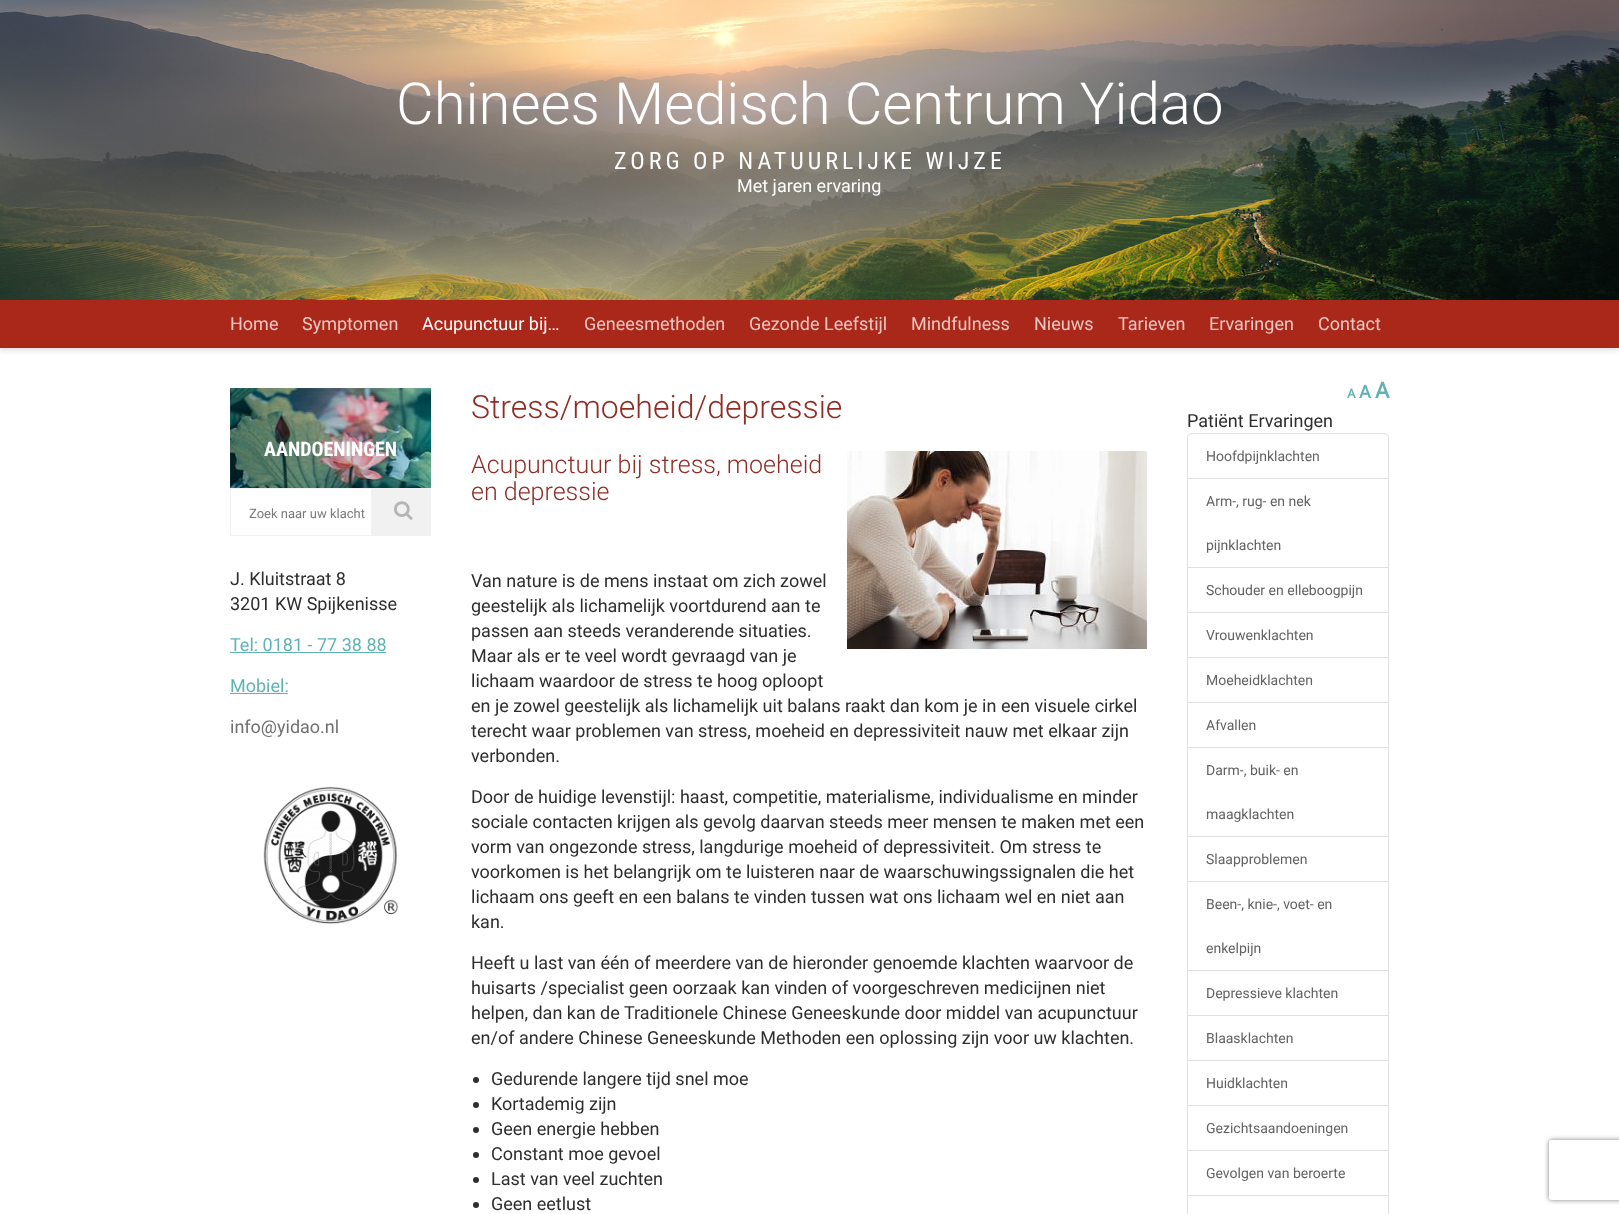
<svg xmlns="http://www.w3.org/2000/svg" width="1619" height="1214">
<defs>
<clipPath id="clip1"><path d="M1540 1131h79v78h-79zm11 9h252c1 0 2 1 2 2v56c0 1-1 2-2 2h-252c-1 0-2-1-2-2v-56c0-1 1-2 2-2z" clip-rule="evenodd"/></clipPath>
</defs>
<rect width="100%" height="100%" fill="#fff"/>
<rect y="303" width="1619" height="48" fill="#0000001a" filter="blur(2.5px)"/>
<image x="0" y="0" width="1619" height="300" href="media/1.png"/>
<text x="396" y="124" style="font-family:Roboto;font-size:58px;font-weight:300;fill:#fff">Chinees Medisch Centrum Yidao</text>
<text x="614" y="169" style="font-family:Roboto Condensed;font-size:24px;letter-spacing:4px;fill:#fff">ZORG OP NATUURLIJKE WIJZE</text>
<text x="737" y="192" style="font-family:Roboto;font-size:18px;fill:#fff">Met jaren ervaring</text>
<rect y="300" width="1619" height="48" fill="#aa2819"/>
<text x="230" y="330" style="font-family:Roboto;font-size:18px;fill:#eac6c2">Home</text>
<text x="302" y="330" style="font-family:Roboto;font-size:18px;fill:#eac6c2">Symptomen</text>
<text x="422" y="330" style="font-family:Roboto;font-size:18px;fill:#fff">Acupunctuur bij…</text>
<text x="584" y="330" style="font-family:Roboto;font-size:18px;fill:#eac6c2">Geneesmethoden</text>
<text x="749" y="330" style="font-family:Roboto;font-size:18px;fill:#eac6c2">Gezonde Leefstijl</text>
<text x="911" y="330" style="font-family:Roboto;font-size:18px;fill:#eac6c2">Mindfulness</text>
<text x="1034" y="330" style="font-family:Roboto;font-size:18px;fill:#eac6c2">Nieuws</text>
<text x="1118" y="330" style="font-family:Roboto;font-size:18px;fill:#eac6c2">Tarieven</text>
<text x="1209" y="330" style="font-family:Roboto;font-size:18px;fill:#eac6c2">Ervaringen</text>
<text x="1318" y="330" style="font-family:Roboto;font-size:18px;fill:#eac6c2">Contact</text>
<text x="1347" y="398" style="font-family:Roboto;font-size:13px;font-weight:bold;fill:#5fb2b5">A</text>
<text x="1359" y="398" style="font-family:Roboto;font-size:18px;font-weight:bold;fill:#5fb2b5">A</text>
<text x="1375" y="398" style="font-family:Roboto;font-size:22px;font-weight:bold;fill:#5fb2b5">A</text>
<image x="230" y="388" width="201" height="100" href="media/2.png"/>
<text x="264" y="456" style="font-family:Roboto Condensed;font-size:20px;font-weight:bold;fill:#fff">AANDOENINGEN</text>
<rect x="230.5" y="488.5" width="160" height="47" fill="none" stroke="#f1f1f1"/>
<text x="249" y="518" style="font-family:Roboto;font-size:13px;fill:#7a7a7a">Zoek naar uw klacht</text>
<rect x="371" y="488" width="60" height="48" fill="#f1f1f1"/>
<image x="394" y="501" width="19" height="19" href="media/3.png"/>
<text x="230" y="585" style="font-family:Roboto;font-size:18px;fill:#2e2e2e">J. Kluitstraat 8</text>
<text x="230" y="610" style="font-family:Roboto;font-size:18px;fill:#2e2e2e">3201 KW Spijkenisse</text>
<text x="230" y="651" style="font-family:Roboto;font-size:18px;fill:#5fb2b5">Tel: 0181 - 77 38 88</text>
<rect x="230" y="652" width="156" height="1" fill="#5fb2b5"/>
<text x="230" y="692" style="font-family:Roboto;font-size:18px;fill:#5fb2b5">Mobiel:</text>
<rect x="230" y="693" width="58" height="1" fill="#5fb2b5"/>
<text x="230" y="733" style="font-family:Roboto;font-size:18px;fill:#707070">info@yidao.nl</text>
<image x="263" y="786" width="136" height="138" href="media/4.png"/>
<text x="471" y="418" style="font-family:Roboto;font-size:32px;font-weight:300;fill:#902d25">Stress/moeheid/depressie</text>
<text x="471" y="473" style="font-family:Roboto;font-size:25px;font-weight:300;fill:#902d25">Acupunctuur bij stress, moeheid</text>
<image x="847" y="451" width="300" height="198" href="media/5.png"/>
<text x="471" y="500" style="font-family:Roboto;font-size:25px;font-weight:300;fill:#902d25">en depressie</text>
<text x="471" y="587" style="font-family:Roboto;font-size:18px;fill:#2e2e2e">Van nature is de mens instaat om zich zowel</text>
<text x="471" y="612" style="font-family:Roboto;font-size:18px;fill:#2e2e2e">geestelijk als lichamelijk voortdurend aan te</text>
<text x="471" y="637" style="font-family:Roboto;font-size:18px;fill:#2e2e2e">passen aan steeds veranderende situaties.</text>
<text x="471" y="662" style="font-family:Roboto;font-size:18px;fill:#2e2e2e">Maar als er te veel wordt gevraagd van je</text>
<text x="471" y="687" style="font-family:Roboto;font-size:18px;fill:#2e2e2e">lichaam waardoor de stress te hoog oploopt</text>
<text x="471" y="712" style="font-family:Roboto;font-size:18px;fill:#2e2e2e">en je zowel geestelijk als lichamelijk uit balans raakt dan kom je in een visuele cirkel</text>
<text x="471" y="737" style="font-family:Roboto;font-size:18px;fill:#2e2e2e">terecht waar problemen van stress, moeheid en depressiviteit nauw met elkaar zijn</text>
<text x="471" y="762" style="font-family:Roboto;font-size:18px;fill:#2e2e2e">verbonden.</text>
<text x="471" y="803" style="font-family:Roboto;font-size:18px;fill:#2e2e2e">Door de huidige levenstijl: haast, competitie, materialisme, individualisme en minder</text>
<text x="471" y="828" style="font-family:Roboto;font-size:18px;fill:#2e2e2e">sociale contacten krijgen als gevolg daarvan steeds meer mensen te maken met een</text>
<text x="471" y="853" style="font-family:Roboto;font-size:18px;fill:#2e2e2e">vorm van ongezonde stress, langdurige moeheid of depressiviteit. Om stress te</text>
<text x="471" y="878" style="font-family:Roboto;font-size:18px;fill:#2e2e2e">voorkomen is het belangrijk om te luisteren naar de waarschuwingssignalen die het</text>
<text x="471" y="903" style="font-family:Roboto;font-size:18px;fill:#2e2e2e">lichaam ons geeft en een balans te vinden tussen wat ons lichaam wel en niet aan</text>
<text x="471" y="928" style="font-family:Roboto;font-size:18px;fill:#2e2e2e">kan.</text>
<text x="471" y="969" style="font-family:Roboto;font-size:18px;fill:#2e2e2e">Heeft u last van één of meerdere van de hieronder genoemde klachten waarvoor de</text>
<text x="471" y="994" style="font-family:Roboto;font-size:18px;fill:#2e2e2e">huisarts /specialist geen oorzaak kan vinden of voorgeschreven medicijnen niet</text>
<text x="471" y="1019" style="font-family:Roboto;font-size:18px;fill:#2e2e2e">helpen, dan kan de Traditionele Chinese Geneeskunde door middel van acupunctuur</text>
<text x="471" y="1044" style="font-family:Roboto;font-size:18px;fill:#2e2e2e">en/of andere Chinese Geneeskunde Methoden een oplossing zijn voor uw klachten.</text>
<circle cx="476" cy="1080" r="3" fill="#2e2e2e"/>
<text x="491" y="1085" style="font-family:Roboto;font-size:18px;fill:#2e2e2e">Gedurende langere tijd snel moe</text>
<circle cx="476" cy="1105" r="3" fill="#2e2e2e"/>
<text x="491" y="1110" style="font-family:Roboto;font-size:18px;fill:#2e2e2e">Kortademig zijn</text>
<circle cx="476" cy="1130" r="3" fill="#2e2e2e"/>
<text x="491" y="1135" style="font-family:Roboto;font-size:18px;fill:#2e2e2e">Geen energie hebben</text>
<circle cx="476" cy="1155" r="3" fill="#2e2e2e"/>
<text x="491" y="1160" style="font-family:Roboto;font-size:18px;fill:#2e2e2e">Constant moe gevoel</text>
<circle cx="476" cy="1180" r="3" fill="#2e2e2e"/>
<text x="491" y="1185" style="font-family:Roboto;font-size:18px;fill:#2e2e2e">Last van veel zuchten</text>
<circle cx="476" cy="1205" r="3" fill="#2e2e2e"/>
<text x="491" y="1210" style="font-family:Roboto;font-size:18px;fill:#2e2e2e">Geen eetlust</text>
<text x="1187" y="427" style="font-family:Roboto;font-size:18px;fill:#2e2e2e">Patiënt Ervaringen</text>
<rect x="1187.5" y="433.5" width="201" height="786" rx="4.5" fill="none" stroke="#e0e0e0"/>
<rect x="1188" y="478" width="200" height="1" fill="#e0e0e0"/>
<text x="1206" y="461" style="font-family:Roboto;font-size:14px;fill:#636363">Hoofdpijnklachten</text>
<rect x="1188" y="567" width="200" height="1" fill="#e0e0e0"/>
<text x="1206" y="506" style="font-family:Roboto;font-size:14px;fill:#636363">Arm-, rug- en nek</text>
<text x="1206" y="550" style="font-family:Roboto;font-size:14px;fill:#636363">pijnklachten</text>
<rect x="1188" y="612" width="200" height="1" fill="#e0e0e0"/>
<text x="1206" y="595" style="font-family:Roboto;font-size:14px;fill:#636363">Schouder en elleboogpijn</text>
<rect x="1188" y="657" width="200" height="1" fill="#e0e0e0"/>
<text x="1206" y="640" style="font-family:Roboto;font-size:14px;fill:#636363">Vrouwenklachten</text>
<rect x="1188" y="702" width="200" height="1" fill="#e0e0e0"/>
<text x="1206" y="685" style="font-family:Roboto;font-size:14px;fill:#636363">Moeheidklachten</text>
<rect x="1188" y="747" width="200" height="1" fill="#e0e0e0"/>
<text x="1206" y="730" style="font-family:Roboto;font-size:14px;fill:#636363">Afvallen</text>
<rect x="1188" y="836" width="200" height="1" fill="#e0e0e0"/>
<text x="1206" y="775" style="font-family:Roboto;font-size:14px;fill:#636363">Darm-, buik- en</text>
<text x="1206" y="819" style="font-family:Roboto;font-size:14px;fill:#636363">maagklachten</text>
<rect x="1188" y="881" width="200" height="1" fill="#e0e0e0"/>
<text x="1206" y="864" style="font-family:Roboto;font-size:14px;fill:#636363">Slaapproblemen</text>
<rect x="1188" y="970" width="200" height="1" fill="#e0e0e0"/>
<text x="1206" y="909" style="font-family:Roboto;font-size:14px;fill:#636363">Been-, knie-, voet- en</text>
<text x="1206" y="953" style="font-family:Roboto;font-size:14px;fill:#636363">enkelpijn</text>
<rect x="1188" y="1015" width="200" height="1" fill="#e0e0e0"/>
<text x="1206" y="998" style="font-family:Roboto;font-size:14px;fill:#636363">Depressieve klachten</text>
<rect x="1188" y="1060" width="200" height="1" fill="#e0e0e0"/>
<text x="1206" y="1043" style="font-family:Roboto;font-size:14px;fill:#636363">Blaasklachten</text>
<rect x="1188" y="1105" width="200" height="1" fill="#e0e0e0"/>
<text x="1206" y="1088" style="font-family:Roboto;font-size:14px;fill:#636363">Huidklachten</text>
<rect x="1188" y="1150" width="200" height="1" fill="#e0e0e0"/>
<text x="1206" y="1133" style="font-family:Roboto;font-size:14px;fill:#636363">Gezichtsaandoeningen</text>
<rect x="1188" y="1195" width="200" height="1" fill="#e0e0e0"/>
<text x="1206" y="1178" style="font-family:Roboto;font-size:14px;fill:#636363">Gevolgen van beroerte</text>
<g clip-path="url(#clip1)">
<rect x="1549" y="1140" width="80" height="60" rx="2" fill="#808080" filter="blur(2.5px)"/>
</g>
</svg>
